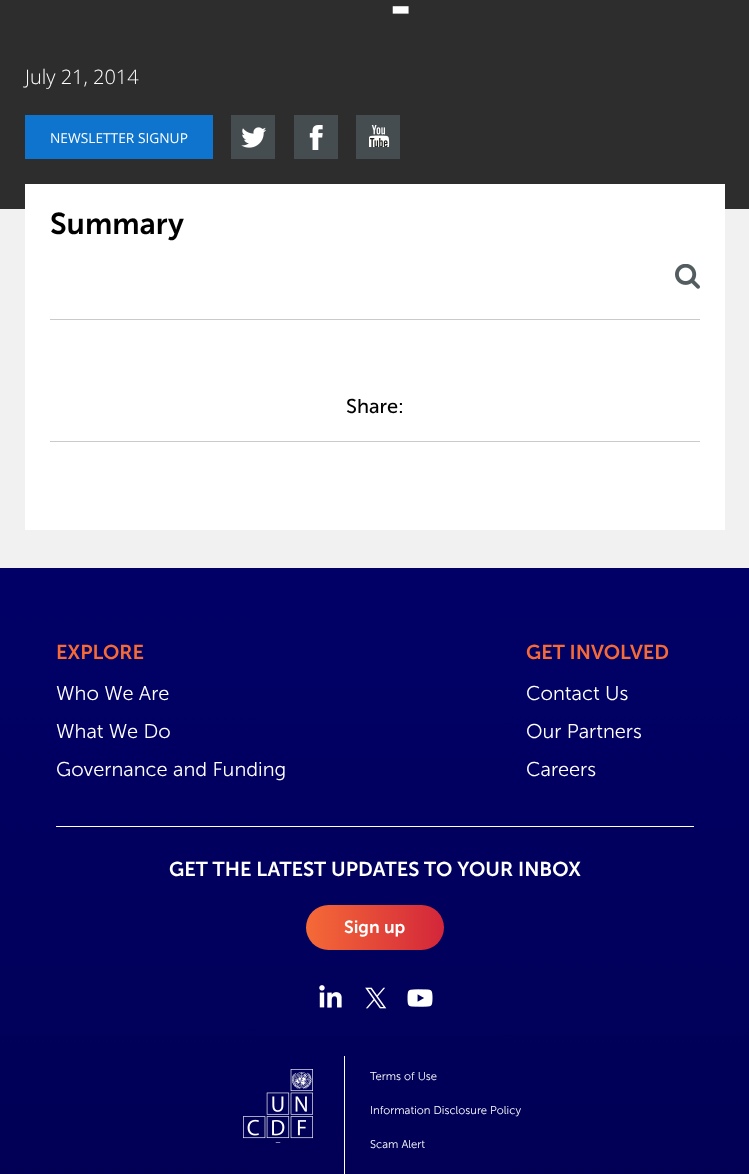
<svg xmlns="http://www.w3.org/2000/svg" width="749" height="1174">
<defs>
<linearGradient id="g1" gradientUnits="userSpaceOnUse" x1="375" y1="567" x2="375" y2="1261"><stop offset="0" stop-color="#010067"/><stop offset="1" stop-color="#010053"/></linearGradient>
<linearGradient id="g2" gradientUnits="userSpaceOnUse" x1="306" y1="928" x2="444" y2="928"><stop offset="0" stop-color="#f56a37"/><stop offset="1" stop-color="#d3263a"/></linearGradient>
</defs>
<rect width="100%" height="100%" fill="#f1f1f1"/>
<rect width="749" height="209" fill="#2d2d2d"/>
<text x="391" y="26" style="font-family:Open Sans;font-size:60px;font-weight:bold;fill:#fff">-</text>
<text x="25" y="84" style="font-family:Open Sans;font-size:20px;font-weight:300;fill:#fff">July 21, 2014</text>
<rect x="25" y="115" width="188" height="44" fill="#0e74cd"/>
<text x="50" y="143" style="font-family:Open Sans;font-size:13.75px;fill:#fff">NEWSLETTER SIGNUP</text>
<rect x="231" y="115" width="44" height="44" fill="#464d51"/>
<image x="241" y="127" width="25" height="21" href="media/1.png"/>
<rect x="294" y="115" width="44" height="44" fill="#464d51"/>
<image x="309" y="125" width="14" height="25" href="media/2.png"/>
<rect x="356" y="115" width="44" height="44" fill="#464d51"/>
<image x="369" y="125" width="21" height="22" href="media/3.png"/>
<rect x="25" y="184" width="700" height="346" fill="#fff"/>
<rect x="50" y="319" width="650" height="1" fill="#cacaca"/>
<text x="50" y="234" style="font-family:Museo Sans;font-size:30px;font-weight:600;fill:#000">Summary</text>
<image x="675" y="264" width="25" height="25" href="media/4.png"/>
<text x="346" y="413" style="font-family:Museo Sans;font-size:20px;fill:#000">Share:</text>
<rect x="50" y="441" width="650" height="1" fill="#cacaca"/>
<rect y="568" width="749" height="606" fill="url(#g1)"/>
<rect x="56" y="826" width="638" height="1" fill="#fff"/>
<text x="56" y="659" style="font-family:'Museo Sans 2';font-size:20px;font-weight:600;fill:#f56a37">EXPLORE</text>
<text x="56" y="700" style="font-family:Museo Sans;font-size:20px;font-weight:300;fill:#fff">Who We Are</text>
<text x="56" y="738" style="font-family:Museo Sans;font-size:20px;font-weight:300;fill:#fff">What We Do</text>
<text x="56" y="776" style="font-family:Museo Sans;font-size:20px;font-weight:300;fill:#fff">Governance and Funding</text>
<text x="526" y="659" style="font-family:'Museo Sans 2';font-size:20px;font-weight:600;fill:#f56a37">GET INVOLVED</text>
<text x="526" y="700" style="font-family:Museo Sans;font-size:20px;font-weight:300;fill:#fff">Contact Us</text>
<text x="526" y="738" style="font-family:Museo Sans;font-size:20px;font-weight:300;fill:#fff">Our Partners</text>
<text x="526" y="776" style="font-family:Museo Sans;font-size:20px;font-weight:300;fill:#fff">Careers</text>
<text x="169" y="876" style="font-family:'Museo Sans 2';font-size:20px;font-weight:600;fill:#fff">GET THE LATEST UPDATES TO YOUR INBOX</text>
<rect x="306" y="905" width="138" height="45" rx="22.5" fill="url(#g2)"/>
<text x="344" y="933" style="font-family:'Museo Sans 2';font-size:17.5px;font-weight:600;fill:#fff">Sign up</text>
<image x="319" y="985" width="23" height="23" href="media/5.png"/>
<image x="365" y="987" width="22" height="22" href="media/6.png"/>
<image x="407" y="989" width="26" height="18" href="media/7.png"/>
<image x="243" y="1069" width="70" height="74" href="media/8.png"/>
<rect x="344" y="1056" width="1" height="118" fill="#fff"/>
<text x="370" y="1080" style="font-family:Museo Sans;font-size:11.25px;font-weight:300;fill:#fff">Terms of Use</text>
<text x="370" y="1114" style="font-family:Museo Sans;font-size:11.25px;font-weight:300;fill:#fff">Information Disclosure Policy</text>
<text x="370" y="1148" style="font-family:Museo Sans;font-size:11.25px;font-weight:300;fill:#fff">Scam Alert</text>
</svg>
